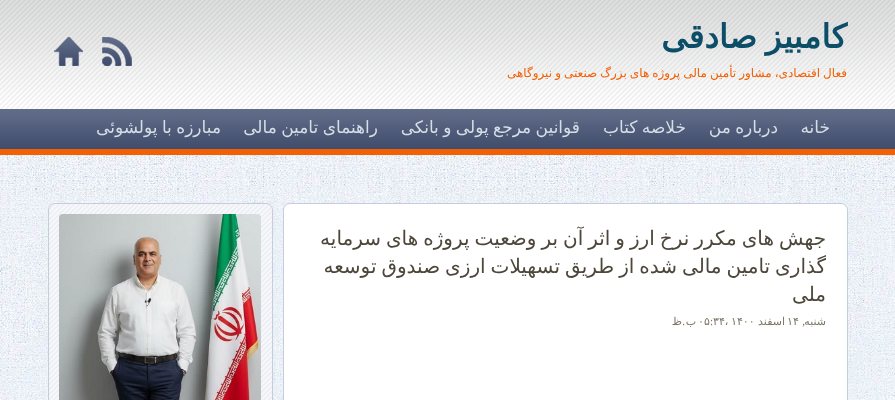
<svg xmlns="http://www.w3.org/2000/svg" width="895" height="400">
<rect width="100%" height="100%" fill="#fff"/>
<image x="0" y="155" width="895" height="245" href="media/1.png"/>
<image x="0" y="0" width="895" height="155" href="media/2.png"/>
<text x="847" y="48" word-spacing="-2" style="font-family:DejaVu Sans;font-size:33px;font-weight:bold;direction:rtl;fill:#0c4d67">کامبیز صادقی</text>
<text x="847" y="77" word-spacing="-0.75" style="font-family:DejaVu Sans;font-size:12px;direction:rtl;fill:#f26005">فعال اقتصادی، مشاور تأمین مالی پروژه های بزرگ صنعتی و نیروگاهی</text>
<image x="102" y="37" width="30" height="29" href="media/3.png"/>
<image x="54" y="37" width="29" height="29" href="media/4.png"/>
<image x="48" y="109" width="800" height="46" href="media/5.png"/>
<text x="830" y="133" style="font-family:DejaVu Sans;font-size:17px;direction:rtl;fill:#d5dee7">خانه</text>
<text x="778" y="133" word-spacing="-1" style="font-family:DejaVu Sans;font-size:17px;direction:rtl;fill:#d5dee7">درباره من</text>
<text x="686" y="133" word-spacing="-1" style="font-family:DejaVu Sans;font-size:17px;direction:rtl;fill:#d5dee7">خلاصه کتاب</text>
<text x="580" y="133" word-spacing="-1" style="font-family:DejaVu Sans;font-size:17px;direction:rtl;fill:#d5dee7">قوانین مرجع پولی و بانکی</text>
<text x="378" y="133" word-spacing="-1" style="font-family:DejaVu Sans;font-size:17px;direction:rtl;fill:#d5dee7">راهنمای تامین مالی</text>
<text x="221" y="133" word-spacing="-1" style="font-family:DejaVu Sans;font-size:17px;direction:rtl;fill:#d5dee7">مبارزه با پولشوئی</text>
<rect x="283.5" y="203.5" width="564" height="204" rx="6.5" fill="#fff" stroke="#c3cddb"/>
<text x="826" y="245" word-spacing="-1.4" style="font-family:DejaVu Sans;font-size:20px;direction:rtl;fill:#4d473b">جهش های مکرر نرخ ارز و اثر آن بر وضعیت پروژه های</text>
<text x="381" y="245" style="font-family:DejaVu Sans;font-size:20px;direction:rtl;fill:#4d473b">سرمایه</text>
<text x="826" y="273" word-spacing="-1.4" style="font-family:DejaVu Sans;font-size:20px;direction:rtl;fill:#4d473b">گذاری تامین مالی شده از طریق</text>
<text x="560" y="273" word-spacing="-1.4" style="font-family:DejaVu Sans;font-size:20px;direction:rtl;fill:#4d473b">تسهیلات ارزی صندوق توسعه</text>
<text x="826" y="301" style="font-family:DejaVu Sans;font-size:20px;direction:rtl;fill:#4d473b">ملی</text>
<text x="826" y="325" style="font-family:DejaVu Sans;font-size:11px;direction:rtl;fill:#7a7563">شنبه</text>
<text x="805" y="325" style="font-family:Liberation Serif;font-size:11px;direction:rtl;fill:#7a7563">,</text>
<text x="787" y="325" style="font-family:DejaVu Sans;font-size:11px;fill:#7a7563">۱۴</text>
<text x="785" y="325" style="font-family:DejaVu Sans;font-size:11px;direction:rtl;fill:#7a7563">اسفند</text>
<text x="731" y="325" style="font-family:DejaVu Sans;font-size:11px;fill:#7a7563">۱۴۰۰</text>
<text x="713" y="325" style="font-family:DejaVu Sans;font-size:11px;fill:#7a7563">۳۴،</text>
<text x="710" y="325" style="font-family:Liberation Serif;font-size:11px;fill:#7a7563">:</text>
<text x="698" y="325" style="font-family:DejaVu Sans;font-size:11px;fill:#7a7563">۰۵</text>
<text x="696" y="325" style="font-family:DejaVu Sans;font-size:11px;direction:rtl;fill:#7a7563">ب</text>
<text x="685" y="325" style="font-family:Liberation Serif;font-size:11px;direction:rtl;fill:#7a7563">.</text>
<text x="682" y="325" style="font-family:DejaVu Sans;font-size:11px;direction:rtl;fill:#7a7563">ظ</text>
<rect x="48" y="203" width="225" height="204" rx="7" fill="#f6f7fb"/>
<image x="48" y="203" width="224" height="197" href="media/6.png"/>
<rect x="48.5" y="203.5" width="224" height="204" rx="6.5" fill="none" stroke="#c3cddb"/>
<image x="59" y="214" width="202" height="186" href="media/7.png"/>
</svg>
